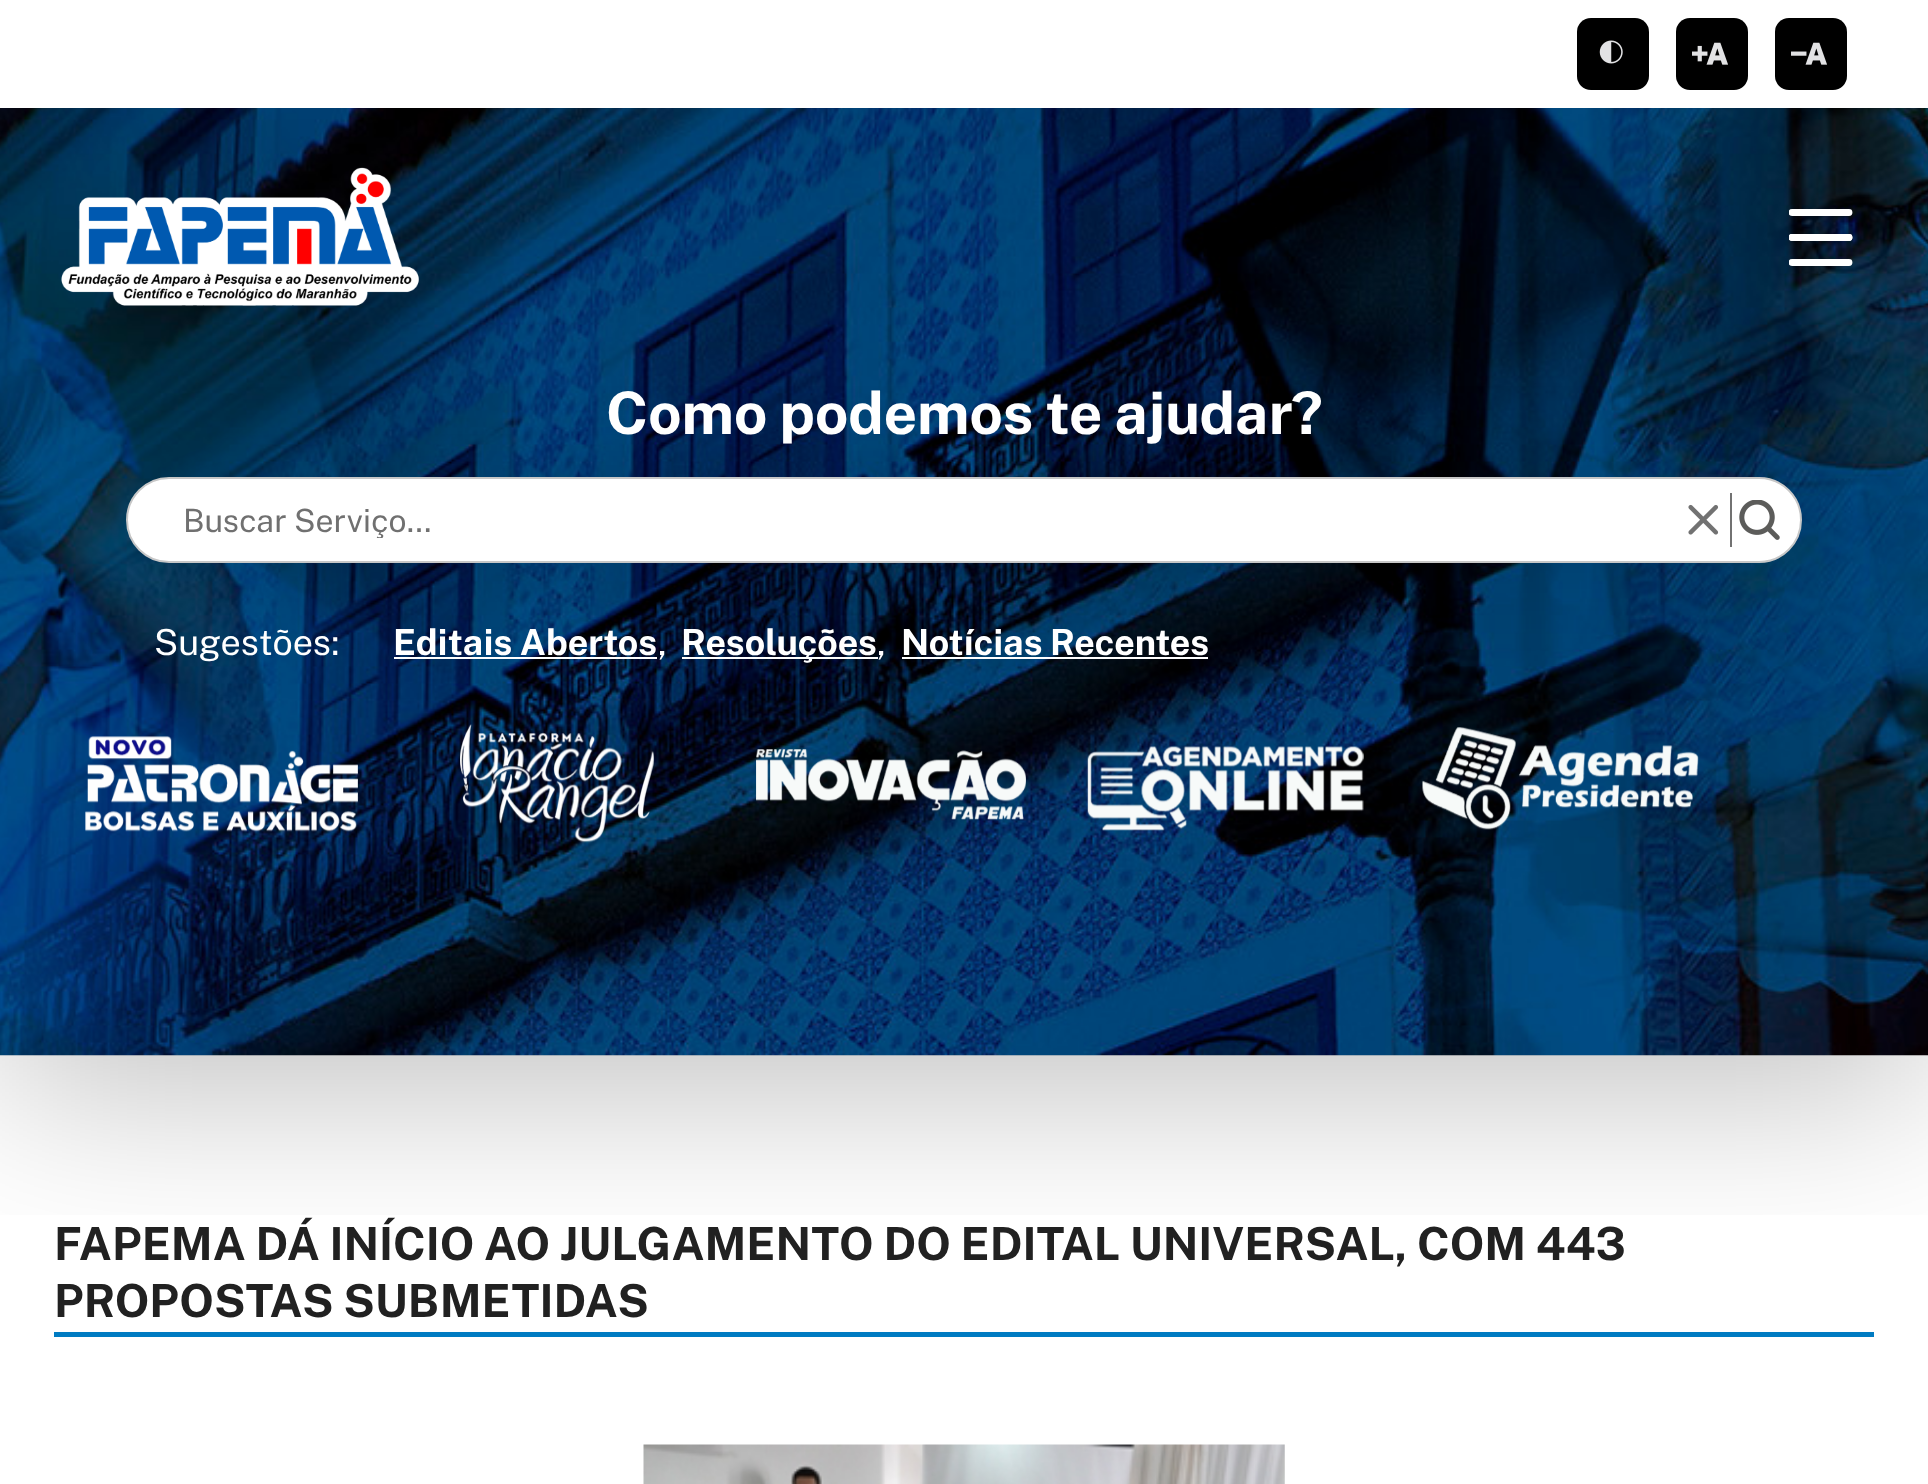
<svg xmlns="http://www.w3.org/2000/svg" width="1928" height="1484">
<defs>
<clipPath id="clip1"><rect x="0" y="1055" width="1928" height="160"/></clipPath>
<clipPath id="clip2"><rect x="1789" y="209" width="65" height="59"/></clipPath>
<clipPath id="clip3"><rect x="182" y="500" width="1497" height="38"/></clipPath>
</defs>
<rect width="100%" height="100%" fill="#fff"/>
<image x="0" y="108" width="1928" height="948" href="media/1.png"/>
<rect x="54" y="1332" width="1820" height="5" fill="#007bc2"/>
<g clip-path="url(#clip1)">
<rect y="34" width="1928" height="1055" fill="#00000040" filter="blur(90px)"/>
</g>
<rect x="1577" y="18" width="72" height="72" rx="14" fill="#000"/>
<image x="1599" y="40" width="24" height="24" href="media/2.png"/>
<rect x="1676" y="18" width="72" height="72" rx="14" fill="#000"/>
<image x="1692" y="42" width="36" height="23" href="media/3.png"/>
<rect x="1775" y="18" width="72" height="72" rx="14" fill="#000"/>
<image x="1791" y="42" width="36" height="23" href="media/4.png"/>
<image x="61" y="167" width="358" height="139" href="media/5.png"/>
<g clip-path="url(#clip2)">
<path d="M1792 212.5h57" fill="none" stroke="#fff" stroke-width="6.8" stroke-linecap="round"/>
<path d="M1792 237.5h57" fill="none" stroke="#fff" stroke-width="6.8" stroke-linecap="round"/>
<path d="M1792 237.5h57" fill="none" stroke="#fff" stroke-width="6.8" stroke-linecap="round"/>
<path d="M1792 262.5h57" fill="none" stroke="#fff" stroke-width="6.8" stroke-linecap="round"/>
</g>
<rect x="149" y="500" width="1676" height="85" rx="42.5" fill="#00000029" filter="blur(56px)"/>
<rect x="127" y="478" width="1674" height="84" rx="42" fill="#fff" stroke="#c7c7c7" stroke-width="2"/>
<text x="606" y="434" style="font-family:Public Sans;font-size:58.6px;font-weight:100;fill:#fff">Como podemos te ajudar?</text>
<g clip-path="url(#clip3)">
<text x="183" y="532" style="font-family:'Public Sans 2';font-size:32px;font-weight:100;fill:#707070">Buscar Serviço…</text>
</g>
<rect x="1730" y="493" width="2" height="54" fill="#727272"/>
<image x="1688" y="504" width="31" height="31" href="media/6.png"/>
<image x="1739" y="500" width="41" height="40" href="media/7.png"/>
<text x="154" y="655" style="font-family:'Public Sans 2';font-size:36px;font-weight:100;fill:#fff">Sugestões:</text>
<text x="393" y="655" style="font-family:Public Sans;font-size:36px;font-weight:100;fill:#fff">Editais Abertos</text>
<rect x="394" y="657" width="263" height="2" fill="#fff"/>
<text x="658" y="655" style="font-family:'Public Sans 2';font-size:36px;font-weight:100;fill:#fff">,</text>
<rect x="682" y="657" width="196" height="2" fill="#fff"/>
<text x="681" y="655" style="font-family:Public Sans;font-size:36px;font-weight:100;fill:#fff">Resoluções</text>
<text x="877" y="655" style="font-family:'Public Sans 2';font-size:36px;font-weight:100;fill:#fff">,</text>
<text x="901" y="655" style="font-family:Public Sans;font-size:36px;font-weight:100;fill:#fff">Notícias Recentes</text>
<rect x="902" y="657" width="306" height="2" fill="#fff"/>
<image x="85" y="736" width="273" height="96" href="media/8.png"/>
<image x="460" y="724" width="194" height="119" href="media/9.png"/>
<image x="756" y="749" width="270" height="71" href="media/10.png"/>
<image x="1087" y="746" width="277" height="85" href="media/11.png"/>
<image x="1422" y="727" width="277" height="103" href="media/12.png"/>
<text x="54" y="1260" style="font-family:Public Sans;font-size:45.55px;font-weight:100;fill:#212121">FAPEMA DÁ INÍCIO AO JULGAMENTO DO EDITAL UNIVERSAL, COM 443</text>
<text x="54" y="1317" style="font-family:Public Sans;font-size:45.55px;font-weight:100;fill:#212121">PROPOSTAS SUBMETIDAS</text>
<image x="643" y="1444" width="642" height="40" href="media/13.png"/>
</svg>
